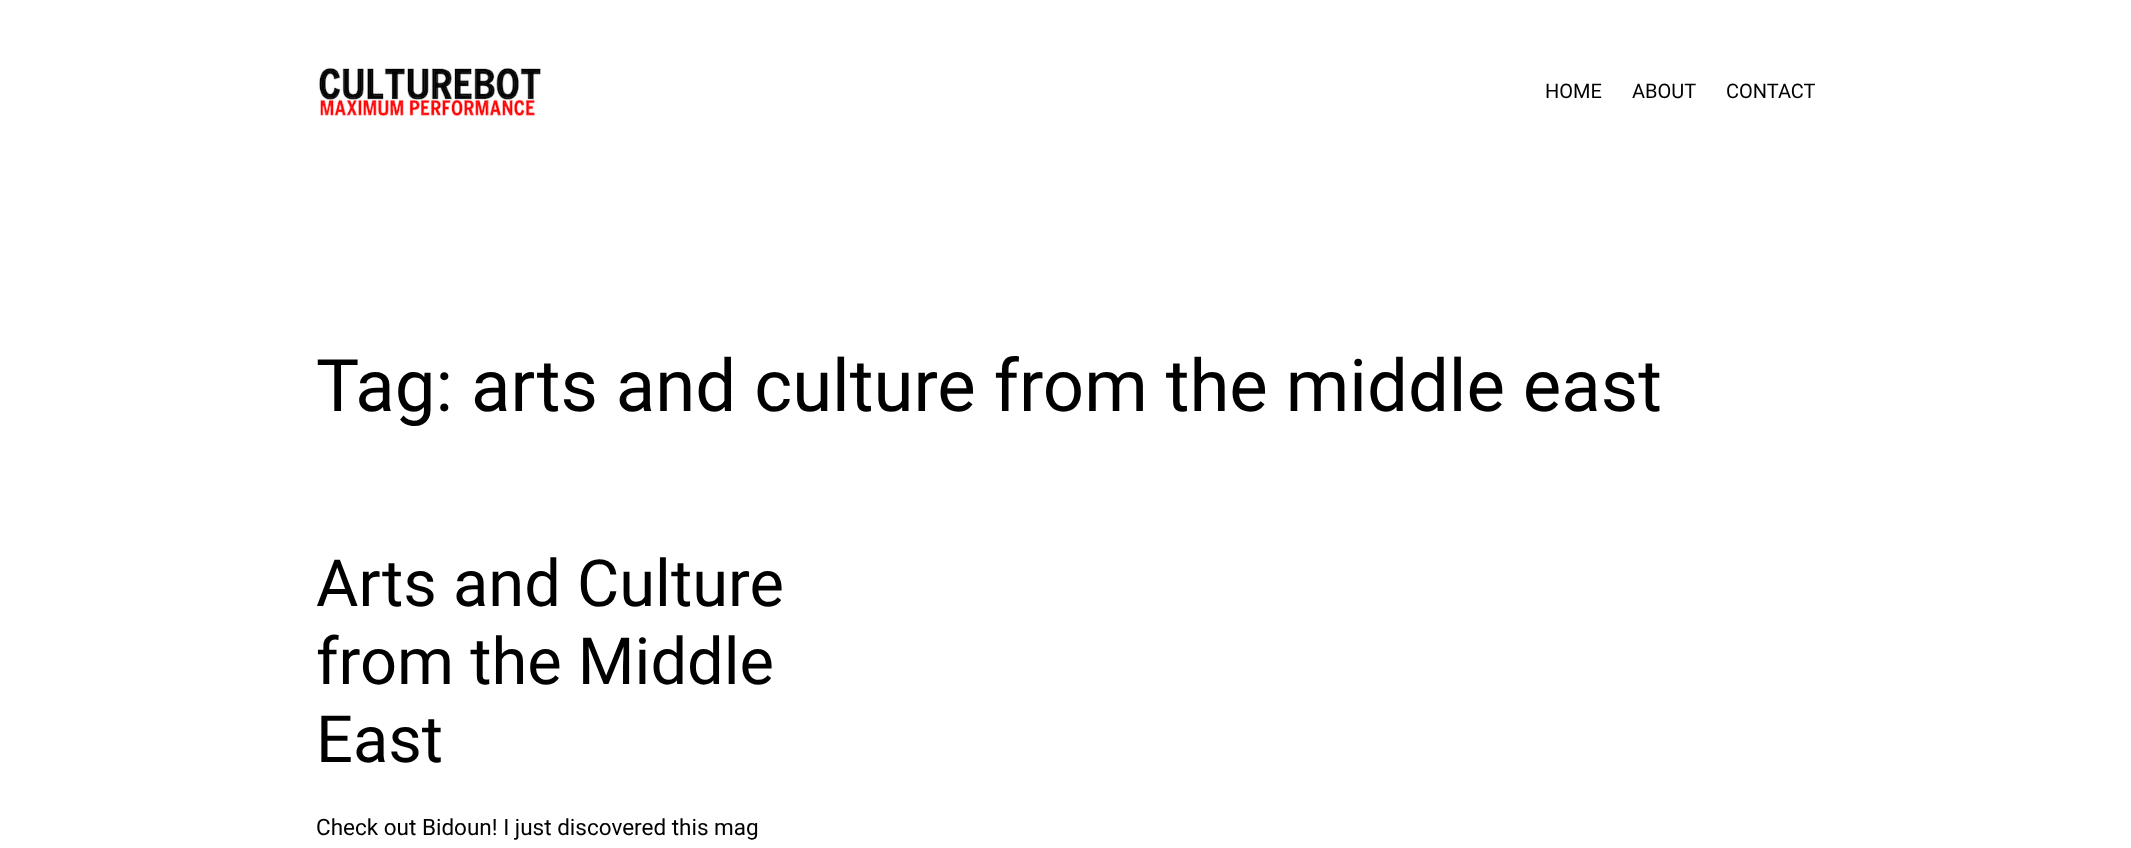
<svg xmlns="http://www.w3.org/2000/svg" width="2131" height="848">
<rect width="100%" height="100%" fill="#fff"/>
<image x="319" y="67" width="222" height="49" href="media/1.png"/>
<text x="1545" y="98" style="font-family:Roboto;font-size:20px;fill:#000">HOME</text>
<text x="1632" y="98" style="font-family:Roboto;font-size:20px;fill:#000">ABOUT</text>
<text x="1726" y="98" style="font-family:Roboto;font-size:20px;fill:#000">CONTACT</text>
<text x="316" y="411" style="font-family:Roboto;font-size:72.5px;fill:#000">Tag: arts and culture from the middle east</text>
<text x="316" y="606" style="font-family:Roboto;font-size:65px;fill:#000">Arts and Culture</text>
<text x="316" y="684" style="font-family:Roboto;font-size:65px;fill:#000">from the Middle</text>
<text x="316" y="762" style="font-family:Roboto;font-size:65px;fill:#000">East</text>
<text x="316" y="835" style="font-family:Roboto;font-size:22.5px;fill:#000">Check out Bidoun! I just discovered this mag</text>
</svg>
